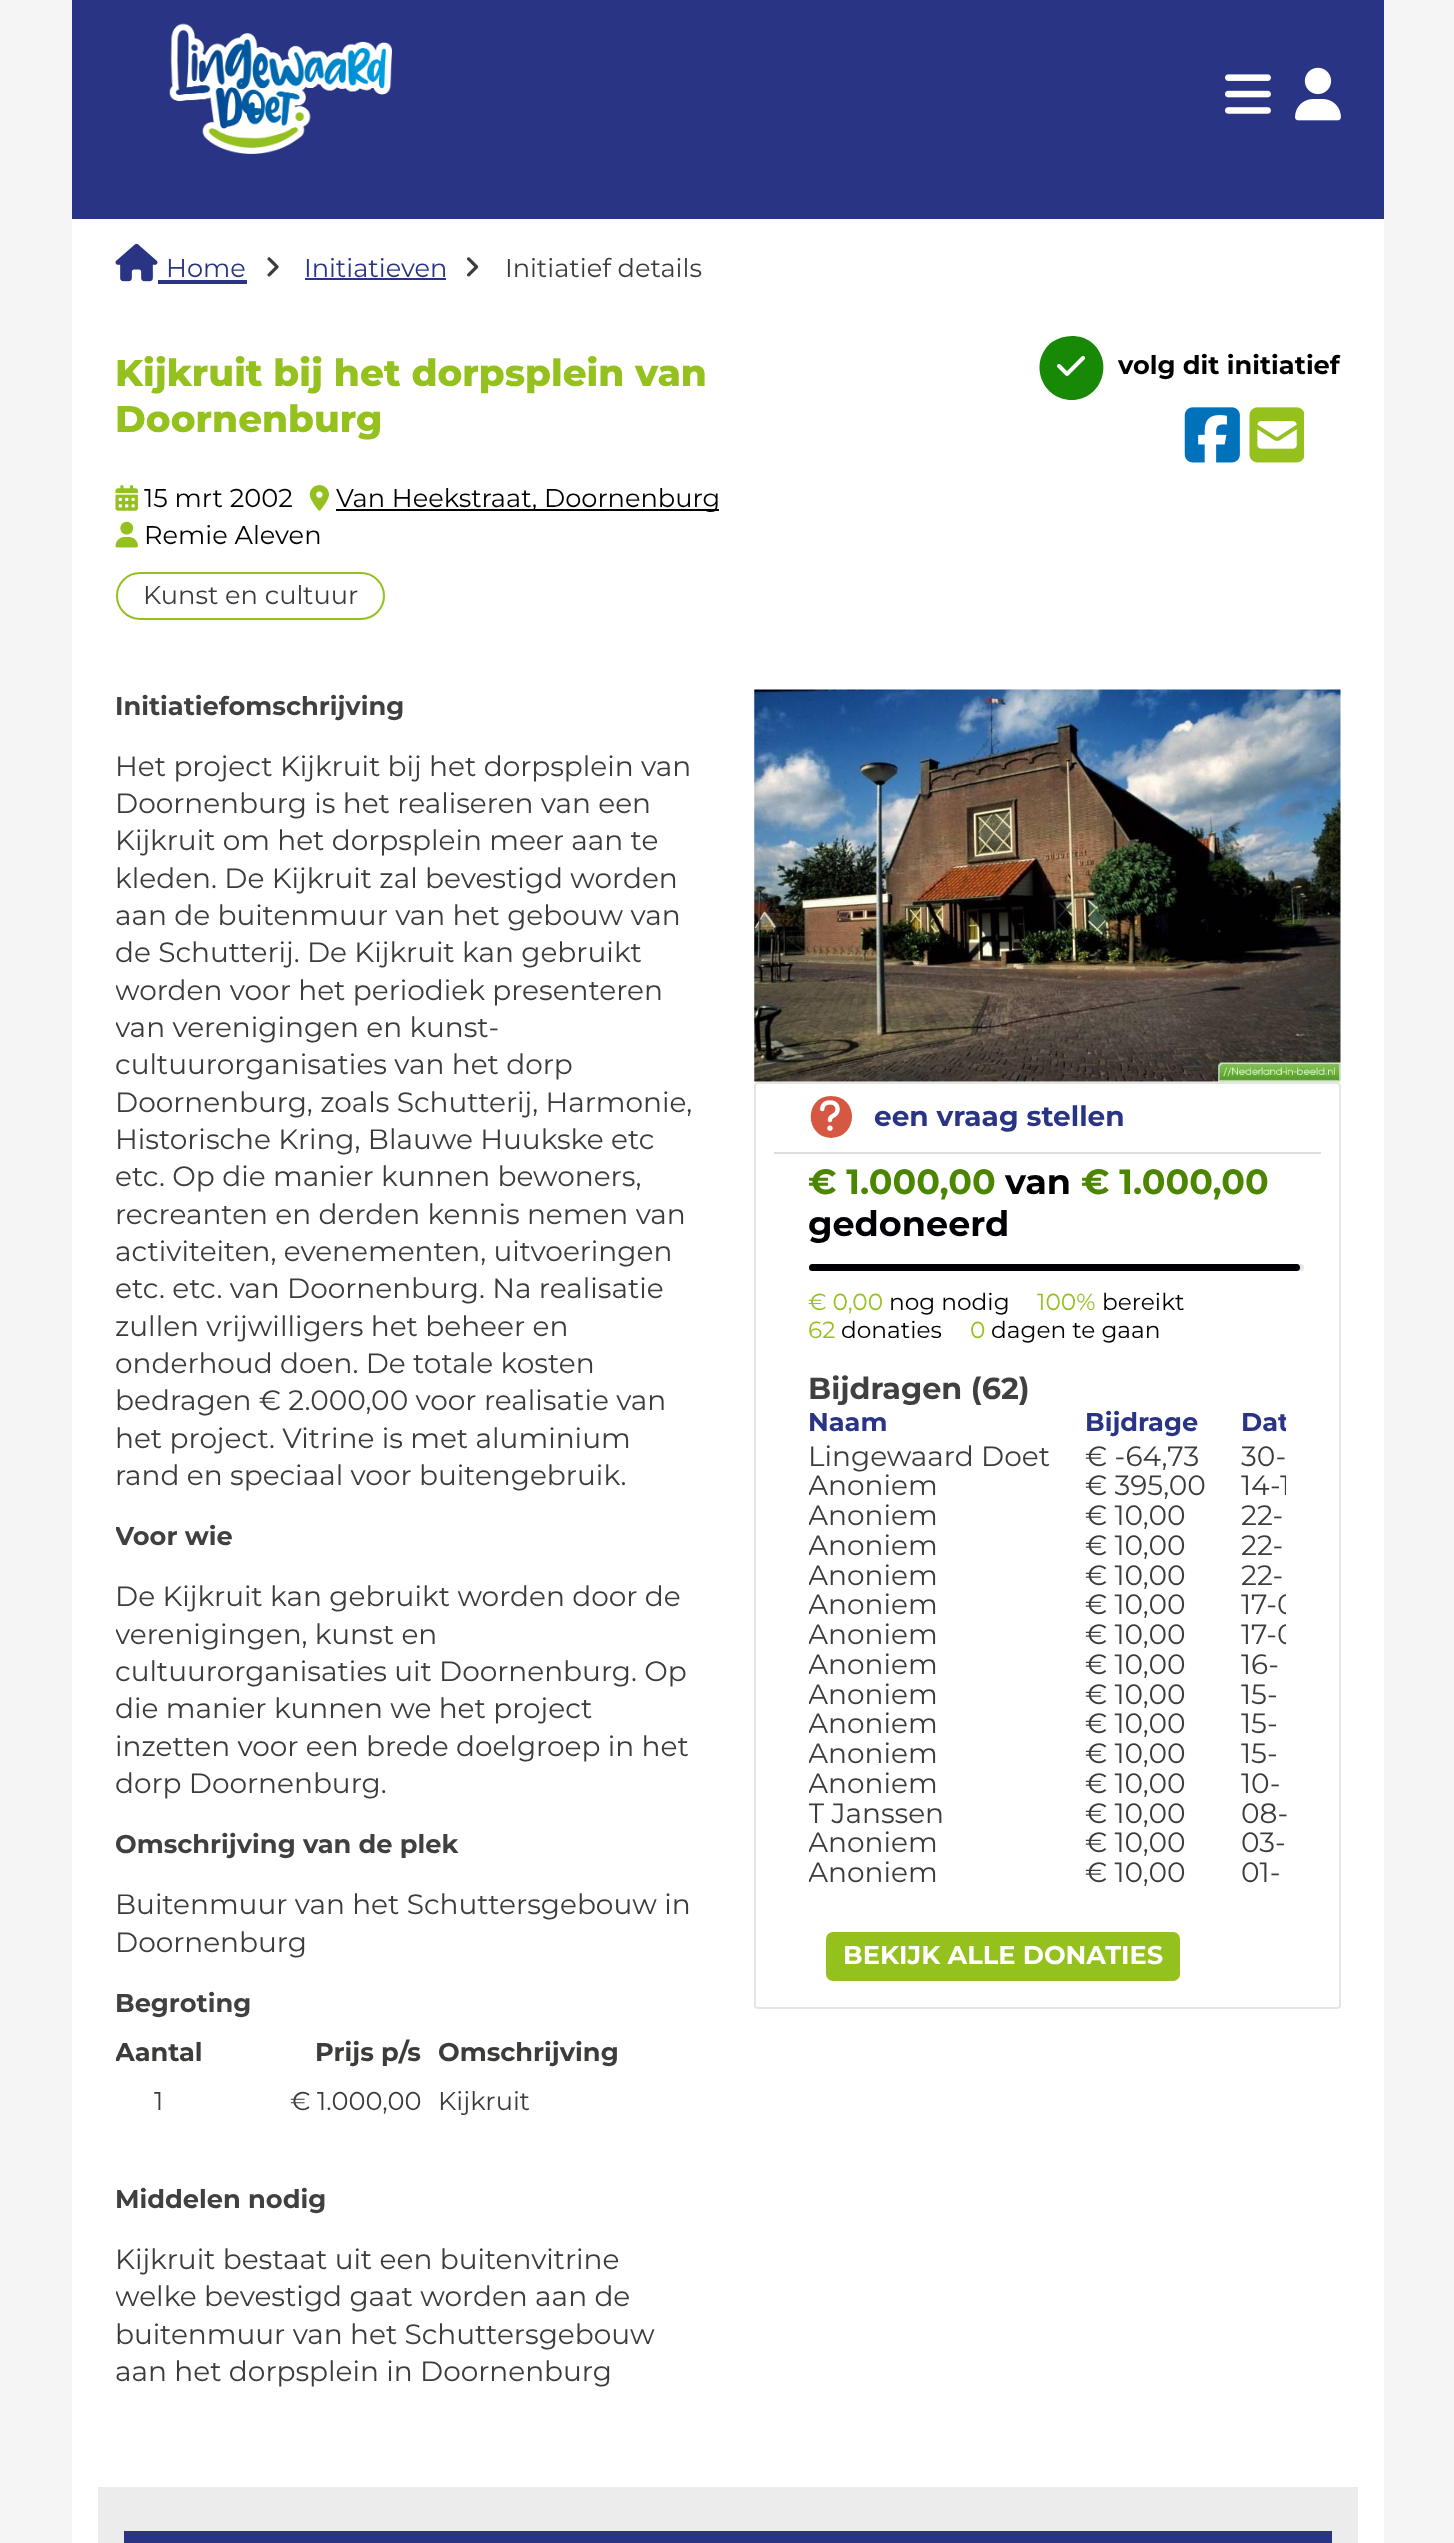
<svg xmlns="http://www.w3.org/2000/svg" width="1454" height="2543">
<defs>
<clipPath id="clip1"><rect x="116" y="690" width="586" height="1727"/></clipPath>
<clipPath id="clip2"><rect x="116" y="2037" width="586" height="116"/></clipPath>
<clipPath id="clip3"><rect x="809" y="1407" width="477" height="516" rx="4"/></clipPath>
</defs>
<rect width="100%" height="100%" fill="#f5f5f5"/>
<rect x="72" y="219" width="1312" height="2324" fill="#fff"/>
<rect x="72" width="1312" height="219" fill="#293484"/>
<image x="169" y="23" width="223" height="131" href="media/1.png"/>
<image x="1225" y="74" width="46" height="40" href="media/2.png"/>
<image x="1295" y="67" width="46" height="54" href="media/3.png"/>
<image x="115" y="243" width="43" height="39" href="media/4.png"/>
<text x="166" y="277" style="font-family:Montserrat;font-size:25.7px;fill:#293484">Home</text>
<rect x="158" y="280" width="89" height="4" fill="#293484"/>
<image x="267" y="257" width="12" height="20" href="media/5.png"/>
<text x="304" y="277" style="font-family:Montserrat;font-size:25.7px;fill:#293484">Initiatieven</text>
<rect x="305" y="278" width="141" height="2" fill="#293484"/>
<image x="467" y="257" width="12" height="20" href="media/6.png"/>
<text x="505" y="277" style="font-family:Montserrat;font-size:25.7px;fill:#3c3c3b">Initiatief details</text>
<text x="115" y="386" style="font-family:Montserrat;font-size:37.3px;font-weight:800;fill:#95c11f">Kijkruit bij het dorpsplein van</text>
<text x="115" y="432" style="font-family:Montserrat;font-size:37.3px;font-weight:800;fill:#95c11f">Doornenburg</text>
<image x="115" y="485" width="23" height="26" href="media/7.png"/>
<text x="144" y="507" style="font-family:Montserrat;font-size:25.7px;fill:#000004">15 mrt 2002</text>
<image x="309" y="485" width="20" height="26" href="media/8.png"/>
<rect x="336" y="509" width="383" height="2" fill="#000004"/>
<text x="336" y="507" style="font-family:Montserrat;font-size:25.7px;fill:#000004">Van Heekstraat, Doornenburg</text>
<image x="115" y="521" width="23" height="27" href="media/9.png"/>
<text x="144" y="544" style="font-family:Montserrat;font-size:25.7px;fill:#000004">Remie Aleven</text>
<rect x="117" y="573" width="267" height="46" rx="23" fill="none" stroke="#95c11f" stroke-width="2"/>
<text x="143" y="604" style="font-family:Montserrat;font-size:25.7px;fill:#3c3c3b">Kunst en cultuur</text>
<path d="M1072 400c30 0 43-39 19-58c-5-4-12-6-19-6c-7 0-14 2-20 6c-24 19-11 58 20 58z" fill="#178906"/>
<image x="1057" y="356" width="28" height="20" href="media/10.png"/>
<text x="1118" y="374" style="font-family:Montserrat;font-size:25.7px;font-weight:bold;fill:#000004">volg dit initiatief</text>
<image x="1184" y="407" width="56" height="56" href="media/11.png"/>
<image x="1249" y="407" width="55" height="56" href="media/12.png"/>
<text x="115" y="715" style="font-family:Montserrat;font-size:25.7px;font-weight:bold;fill:#404041">Initiatiefomschrijving</text>
<text x="115" y="776" style="font-family:Montserrat;font-size:28px;fill:#3c3c3b">Het project Kijkruit bij het dorpsplein van</text>
<text x="115" y="813" style="font-family:Montserrat;font-size:28px;fill:#3c3c3b">Doornenburg is het realiseren van een</text>
<text x="115" y="850" style="font-family:Montserrat;font-size:28px;fill:#3c3c3b">Kijkruit om het dorpsplein meer aan te</text>
<text x="115" y="888" style="font-family:Montserrat;font-size:28px;fill:#3c3c3b">kleden. De Kijkruit zal bevestigd worden</text>
<text x="115" y="925" style="font-family:Montserrat;font-size:28px;fill:#3c3c3b">aan de buitenmuur van het gebouw van</text>
<text x="115" y="962" style="font-family:Montserrat;font-size:28px;fill:#3c3c3b">de Schutterij. De Kijkruit kan gebruikt</text>
<g clip-path="url(#clip1)">
<text x="115" y="1000" style="font-family:Montserrat;font-size:28px;fill:#3c3c3b">worden voor het periodiek presenteren</text>
<text x="115" y="1037" style="font-family:Montserrat;font-size:28px;fill:#3c3c3b">van verenigingen en kunst-</text>
</g>
<text x="115" y="1074" style="font-family:Montserrat;font-size:28px;fill:#3c3c3b">cultuurorganisaties van het dorp</text>
<text x="115" y="1112" style="font-family:Montserrat;font-size:28px;fill:#3c3c3b">Doornenburg, zoals Schutterij, Harmonie,</text>
<text x="115" y="1149" style="font-family:Montserrat;font-size:28px;fill:#3c3c3b">Historische Kring, Blauwe Huukske etc</text>
<text x="115" y="1186" style="font-family:Montserrat;font-size:28px;fill:#3c3c3b">etc. Op die manier kunnen bewoners,</text>
<text x="115" y="1224" style="font-family:Montserrat;font-size:28px;fill:#3c3c3b">recreanten en derden kennis nemen van</text>
<text x="115" y="1261" style="font-family:Montserrat;font-size:28px;fill:#3c3c3b">activiteiten, evenementen, uitvoeringen</text>
<text x="115" y="1298" style="font-family:Montserrat;font-size:28px;fill:#3c3c3b">etc. etc. van Doornenburg. Na realisatie</text>
<text x="115" y="1336" style="font-family:Montserrat;font-size:28px;fill:#3c3c3b">zullen vrijwilligers het beheer en</text>
<text x="115" y="1373" style="font-family:Montserrat;font-size:28px;fill:#3c3c3b">onderhoud doen. De totale kosten</text>
<text x="115" y="1410" style="font-family:Montserrat;font-size:28px;fill:#3c3c3b">bedragen € 2.000,00 voor realisatie van</text>
<text x="115" y="1448" style="font-family:Montserrat;font-size:28px;fill:#3c3c3b">het project. Vitrine is met aluminium</text>
<text x="115" y="1485" style="font-family:Montserrat;font-size:28px;fill:#3c3c3b">rand en speciaal voor buitengebruik.</text>
<g clip-path="url(#clip1)">
<text x="115" y="1545" style="font-family:Montserrat;font-size:25.7px;font-weight:bold;fill:#404041">Voor wie</text>
</g>
<text x="115" y="1606" style="font-family:Montserrat;font-size:28px;fill:#3c3c3b">De Kijkruit kan gebruikt worden door de</text>
<g clip-path="url(#clip1)">
<text x="115" y="1644" style="font-family:Montserrat;font-size:28px;fill:#3c3c3b">verenigingen, kunst en</text>
</g>
<text x="115" y="1681" style="font-family:Montserrat;font-size:28px;fill:#3c3c3b">cultuurorganisaties uit Doornenburg. Op</text>
<text x="115" y="1718" style="font-family:Montserrat;font-size:28px;fill:#3c3c3b">die manier kunnen we het project</text>
<text x="115" y="1756" style="font-family:Montserrat;font-size:28px;fill:#3c3c3b">inzetten voor een brede doelgroep in het</text>
<text x="115" y="1793" style="font-family:Montserrat;font-size:28px;fill:#3c3c3b">dorp Doornenburg.</text>
<g clip-path="url(#clip1)">
<text x="115" y="1853" style="font-family:Montserrat;font-size:25.7px;font-weight:bold;fill:#404041">Omschrijving van de plek</text>
</g>
<text x="115" y="1914" style="font-family:Montserrat;font-size:28px;fill:#3c3c3b">Buitenmuur van het Schuttersgebouw in</text>
<text x="115" y="1952" style="font-family:Montserrat;font-size:28px;fill:#3c3c3b">Doornenburg</text>
<text x="115" y="2012" style="font-family:Montserrat;font-size:25.7px;font-weight:bold;fill:#404041">Begroting</text>
<g clip-path="url(#clip2)">
<text x="115" y="2061" style="font-family:Montserrat;font-size:25.7px;font-weight:bold;fill:#3c3c3b">Aantal</text>
</g>
<text x="315" y="2061" style="font-family:Montserrat;font-size:25.7px;font-weight:bold;fill:#3c3c3b">Prijs p/s</text>
<text x="438" y="2061" style="font-family:Montserrat;font-size:25.7px;font-weight:bold;fill:#3c3c3b">Omschrijving</text>
<text x="154" y="2110" style="font-family:Montserrat;font-size:25.7px;fill:#3c3c3b">1</text>
<text x="290" y="2110" style="font-family:Montserrat;font-size:25.7px;fill:#3c3c3b">€ 1.000,00</text>
<text x="438" y="2110" style="font-family:Montserrat;font-size:25.7px;fill:#3c3c3b">Kijkruit</text>
<text x="115" y="2208" style="font-family:Montserrat;font-size:25.7px;font-weight:bold;fill:#404041">Middelen nodig</text>
<text x="115" y="2269" style="font-family:Montserrat;font-size:28px;fill:#3c3c3b">Kijkruit bestaat uit een buitenvitrine</text>
<g clip-path="url(#clip1)">
<text x="115" y="2306" style="font-family:Montserrat;font-size:28px;fill:#3c3c3b">welke bevestigd gaat worden aan de</text>
</g>
<text x="115" y="2344" style="font-family:Montserrat;font-size:28px;fill:#3c3c3b">buitenmuur van het Schuttersgebouw</text>
<text x="115" y="2381" style="font-family:Montserrat;font-size:28px;fill:#3c3c3b">aan het dorpsplein in Doornenburg</text>
<image x="754" y="689" width="587" height="393" href="media/13.png"/>
<rect x="755" y="1083" width="585" height="925" rx="3" fill="none" stroke="#e5e5e5" stroke-width="2"/>
<rect x="774" y="1152" width="547" height="2" fill="#dedede"/>
<path d="M831 1138c28-1 28-42 0-42c-27 0-27 41 0 42z" fill="#d65842"/>
<image x="820" y="1100" width="20" height="31" href="media/14.png"/>
<text x="874" y="1126" style="font-family:Montserrat;font-size:28px;font-weight:bold;fill:#293484">een vraag stellen</text>
<text x="808" y="1194" style="font-family:Montserrat;font-size:35px;font-weight:bold;fill:#4c8500">€ 1.000,00</text>
<text x="1005" y="1194" style="font-family:Montserrat;font-size:35px;font-weight:bold;fill:#000004">van</text>
<text x="1081" y="1194" style="font-family:Montserrat;font-size:35px;font-weight:bold;fill:#4c8500">€ 1.000,00</text>
<text x="808" y="1236" style="font-family:Montserrat;font-size:35px;font-weight:bold;fill:#000004">gedoneerd</text>
<rect x="809" y="1264" width="495" height="7" rx="3.5" fill="#e5e6e7"/>
<rect x="809" y="1264" width="491" height="7" rx="3.5" fill="#000004"/>
<text x="808" y="1310" style="font-family:Montserrat;font-size:23.25px;fill:#95c11f">€ 0,00</text>
<text x="889" y="1310" style="font-family:Montserrat;font-size:23.25px;fill:#000004">nog nodig</text>
<text x="1037" y="1310" style="font-family:Montserrat;font-size:23.25px;fill:#95c11f">100%</text>
<text x="1102" y="1310" style="font-family:Montserrat;font-size:23.25px;fill:#000004">bereikt</text>
<text x="808" y="1338" style="font-family:Montserrat;font-size:23.25px;fill:#95c11f">62</text>
<text x="841" y="1338" style="font-family:Montserrat;font-size:23.25px;fill:#000004">donaties</text>
<text x="970" y="1338" style="font-family:Montserrat;font-size:23.25px;fill:#95c11f">0</text>
<text x="991" y="1338" style="font-family:Montserrat;font-size:23.25px;fill:#000004">dagen te gaan</text>
<text x="808" y="1399" style="font-family:Montserrat;font-size:30.25px;font-weight:bold;fill:#404041">Bijdragen (62)</text>
<text x="808" y="1431" style="font-family:Montserrat;font-size:25.7px;font-weight:bold;fill:#293484">Naam</text>
<text x="1085" y="1431" style="font-family:Montserrat;font-size:25.7px;font-weight:bold;fill:#293484">Bijdrage</text>
<g clip-path="url(#clip3)">
<text x="1241" y="1431" style="font-family:Montserrat;font-size:25.7px;font-weight:bold;fill:#293484">Dat</text>
</g>
<text x="808" y="1466" style="font-family:Montserrat;font-size:28px;fill:#3c3c3b">Lingewaard Doet</text>
<text x="1085" y="1466" style="font-family:Montserrat;font-size:28px;fill:#3c3c3b">€ -64,73</text>
<text x="1241" y="1466" style="font-family:Montserrat;font-size:28px;fill:#3c3c3b">30-</text>
<g clip-path="url(#clip3)">
<text x="808" y="1495" style="font-family:Montserrat;font-size:28px;fill:#3c3c3b">Anoniem</text>
</g>
<text x="1085" y="1495" style="font-family:Montserrat;font-size:28px;fill:#3c3c3b">€ 395,00</text>
<g clip-path="url(#clip3)">
<text x="1241" y="1495" style="font-family:Montserrat;font-size:28px;fill:#3c3c3b">14-1</text>
<text x="808" y="1525" style="font-family:Montserrat;font-size:28px;fill:#3c3c3b">Anoniem</text>
</g>
<text x="1085" y="1525" style="font-family:Montserrat;font-size:28px;fill:#3c3c3b">€ 10,00</text>
<text x="1241" y="1525" style="font-family:Montserrat;font-size:28px;fill:#3c3c3b">22-</text>
<g clip-path="url(#clip3)">
<text x="808" y="1555" style="font-family:Montserrat;font-size:28px;fill:#3c3c3b">Anoniem</text>
</g>
<text x="1085" y="1555" style="font-family:Montserrat;font-size:28px;fill:#3c3c3b">€ 10,00</text>
<text x="1241" y="1555" style="font-family:Montserrat;font-size:28px;fill:#3c3c3b">22-</text>
<g clip-path="url(#clip3)">
<text x="808" y="1585" style="font-family:Montserrat;font-size:28px;fill:#3c3c3b">Anoniem</text>
</g>
<text x="1085" y="1585" style="font-family:Montserrat;font-size:28px;fill:#3c3c3b">€ 10,00</text>
<text x="1241" y="1585" style="font-family:Montserrat;font-size:28px;fill:#3c3c3b">22-</text>
<g clip-path="url(#clip3)">
<text x="808" y="1614" style="font-family:Montserrat;font-size:28px;fill:#3c3c3b">Anoniem</text>
</g>
<text x="1085" y="1614" style="font-family:Montserrat;font-size:28px;fill:#3c3c3b">€ 10,00</text>
<g clip-path="url(#clip3)">
<text x="1241" y="1614" style="font-family:Montserrat;font-size:28px;fill:#3c3c3b">17-0</text>
<text x="808" y="1644" style="font-family:Montserrat;font-size:28px;fill:#3c3c3b">Anoniem</text>
</g>
<text x="1085" y="1644" style="font-family:Montserrat;font-size:28px;fill:#3c3c3b">€ 10,00</text>
<g clip-path="url(#clip3)">
<text x="1241" y="1644" style="font-family:Montserrat;font-size:28px;fill:#3c3c3b">17-0</text>
<text x="808" y="1674" style="font-family:Montserrat;font-size:28px;fill:#3c3c3b">Anoniem</text>
</g>
<text x="1085" y="1674" style="font-family:Montserrat;font-size:28px;fill:#3c3c3b">€ 10,00</text>
<text x="1241" y="1674" style="font-family:Montserrat;font-size:28px;fill:#3c3c3b">16-</text>
<g clip-path="url(#clip3)">
<text x="808" y="1704" style="font-family:Montserrat;font-size:28px;fill:#3c3c3b">Anoniem</text>
</g>
<text x="1085" y="1704" style="font-family:Montserrat;font-size:28px;fill:#3c3c3b">€ 10,00</text>
<text x="1241" y="1704" style="font-family:Montserrat;font-size:28px;fill:#3c3c3b">15-</text>
<g clip-path="url(#clip3)">
<text x="808" y="1733" style="font-family:Montserrat;font-size:28px;fill:#3c3c3b">Anoniem</text>
</g>
<text x="1085" y="1733" style="font-family:Montserrat;font-size:28px;fill:#3c3c3b">€ 10,00</text>
<text x="1241" y="1733" style="font-family:Montserrat;font-size:28px;fill:#3c3c3b">15-</text>
<g clip-path="url(#clip3)">
<text x="808" y="1763" style="font-family:Montserrat;font-size:28px;fill:#3c3c3b">Anoniem</text>
</g>
<text x="1085" y="1763" style="font-family:Montserrat;font-size:28px;fill:#3c3c3b">€ 10,00</text>
<text x="1241" y="1763" style="font-family:Montserrat;font-size:28px;fill:#3c3c3b">15-</text>
<g clip-path="url(#clip3)">
<text x="808" y="1793" style="font-family:Montserrat;font-size:28px;fill:#3c3c3b">Anoniem</text>
</g>
<text x="1085" y="1793" style="font-family:Montserrat;font-size:28px;fill:#3c3c3b">€ 10,00</text>
<text x="1241" y="1793" style="font-family:Montserrat;font-size:28px;fill:#3c3c3b">10-</text>
<g clip-path="url(#clip3)">
<text x="808" y="1823" style="font-family:Montserrat;font-size:28px;fill:#3c3c3b">T Janssen</text>
</g>
<text x="1085" y="1823" style="font-family:Montserrat;font-size:28px;fill:#3c3c3b">€ 10,00</text>
<text x="1241" y="1823" style="font-family:Montserrat;font-size:28px;fill:#3c3c3b">08-</text>
<g clip-path="url(#clip3)">
<text x="808" y="1852" style="font-family:Montserrat;font-size:28px;fill:#3c3c3b">Anoniem</text>
</g>
<text x="1085" y="1852" style="font-family:Montserrat;font-size:28px;fill:#3c3c3b">€ 10,00</text>
<text x="1241" y="1852" style="font-family:Montserrat;font-size:28px;fill:#3c3c3b">03-</text>
<g clip-path="url(#clip3)">
<text x="808" y="1882" style="font-family:Montserrat;font-size:28px;fill:#3c3c3b">Anoniem</text>
</g>
<text x="1085" y="1882" style="font-family:Montserrat;font-size:28px;fill:#3c3c3b">€ 10,00</text>
<text x="1241" y="1882" style="font-family:Montserrat;font-size:28px;fill:#3c3c3b">01-</text>
<rect x="826" y="1932" width="354" height="49" rx="7" fill="#95c11f"/>
<text x="843" y="1964" style="font-family:Montserrat;font-size:25.7px;font-weight:bold;fill:#fff">BEKIJK ALLE DONATIES</text>
<rect x="98" y="2487" width="1260" height="56" fill="#ebeceb"/>
<rect x="124" y="2531" width="1208" height="12" fill="#293484"/>
</svg>
